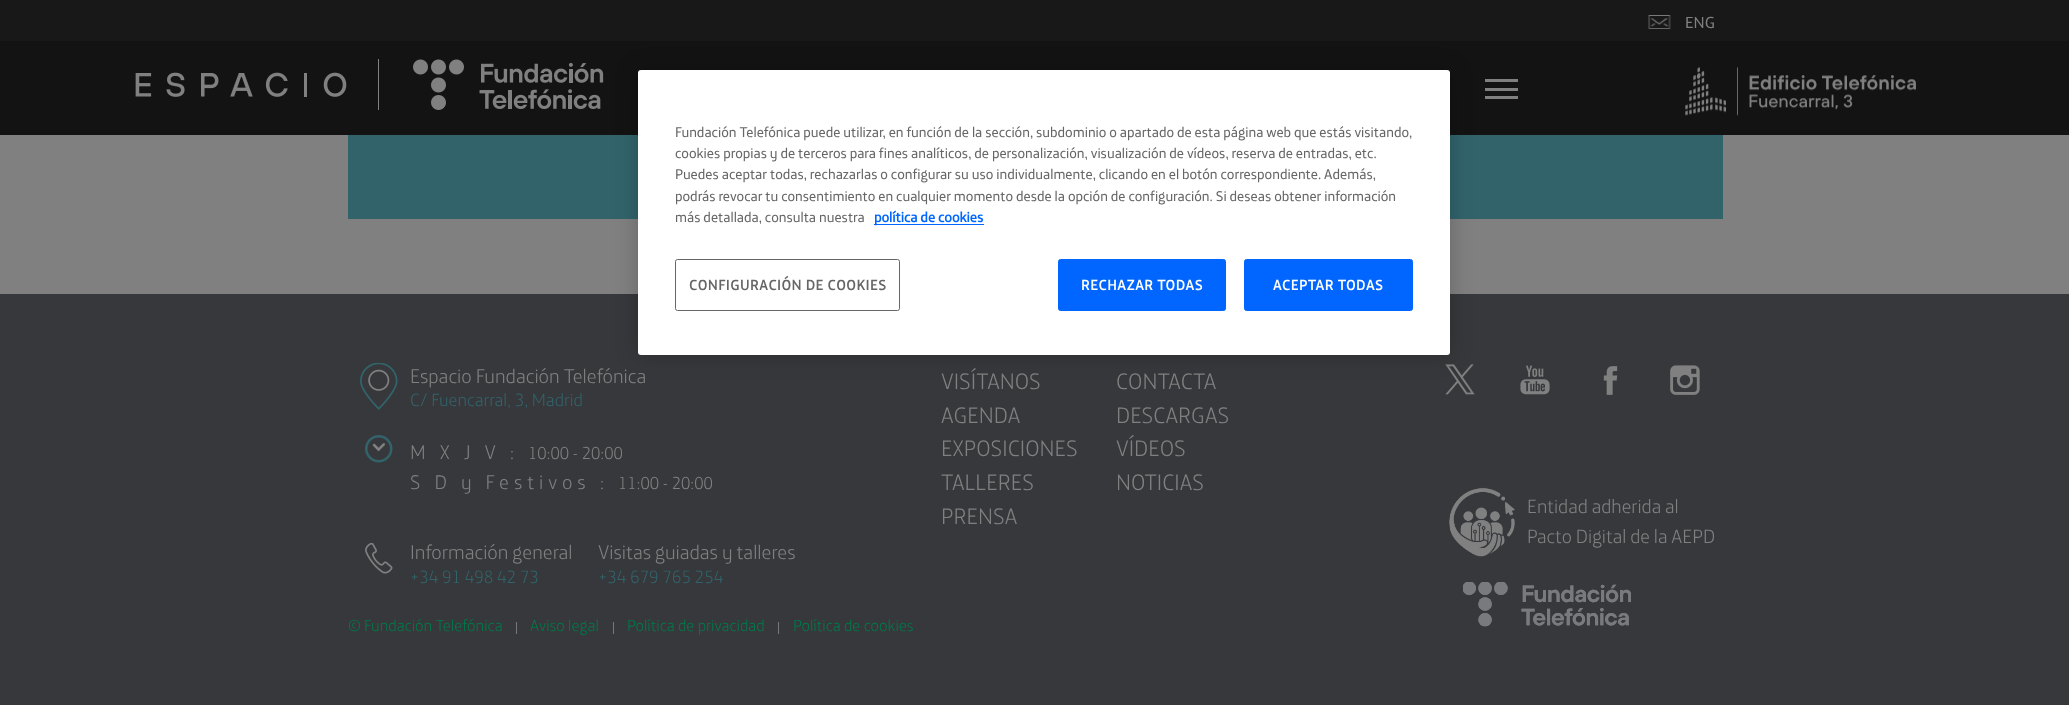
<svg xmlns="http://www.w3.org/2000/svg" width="2069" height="705">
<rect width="100%" height="100%" fill="#808080"/>
<rect width="2069" height="41" fill="#181818"/>
<image x="1648" y="15" width="23" height="14" href="media/1.png"/>
<text x="1685" y="28" style="font-family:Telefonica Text;font-size:16.25px;fill:#808080">ENG</text>
<rect y="41" width="2069" height="94" fill="#131313"/>
<image x="135" y="59" width="469" height="51" href="media/2.png"/>
<rect x="1485" y="88" width="33" height="3" fill="#808080"/>
<rect x="1485" y="79" width="33" height="3" fill="#808080"/>
<rect x="1485" y="96" width="33" height="3" fill="#808080"/>
<image x="1685" y="67" width="231" height="49" href="media/3.png"/>
<rect x="348" y="135" width="1375" height="84" fill="#32636b"/>
<rect y="294" width="2069" height="411" fill="#36383b"/>
<image x="360" y="363" width="38" height="47" href="media/4.png"/>
<text x="410" y="383" style="font-family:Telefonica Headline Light;font-size:20px;font-weight:300;fill:#808080">Espacio Fundación Telefónica</text>
<text x="410" y="406" style="font-family:Telefonica Headline Light;font-size:18px;font-weight:300;fill:#32636b">C/ Fuencarral, 3, Madrid</text>
<image x="365" y="435" width="28" height="28" href="media/5.png"/>
<text x="410" y="459" style="font-family:Telefonica Headline Light;font-size:20px;font-weight:300;letter-spacing:5px;fill:#808080">M X J V :</text>
<text x="528" y="459" style="font-family:Telefonica Headline Light;font-size:17.5px;font-weight:300;fill:#808080">10:00 - 20:00</text>
<text x="410" y="489" style="font-family:Telefonica Headline Light;font-size:20px;font-weight:300;letter-spacing:5px;fill:#808080">S D y Festivos :</text>
<text x="618" y="489" style="font-family:Telefonica Headline Light;font-size:17.5px;font-weight:300;fill:#808080">11:00 - 20:00</text>
<image x="365" y="543" width="28" height="31" href="media/6.png"/>
<text x="410" y="559" style="font-family:Telefonica Headline Light;font-size:20px;font-weight:300;fill:#808080">Información general</text>
<text x="410" y="583" style="font-family:Telefonica Headline Light;font-size:18px;font-weight:300;fill:#32636b">+34 91 498 42 73</text>
<text x="598" y="559" style="font-family:Telefonica Headline Light;font-size:20px;font-weight:300;fill:#808080">Visitas guiadas y talleres</text>
<text x="598" y="583" style="font-family:Telefonica Headline Light;font-size:18px;font-weight:300;fill:#32636b">+34 679 765 254</text>
<text x="941" y="389" style="font-family:Telefonica Headline Light;font-size:22.5px;font-weight:300;fill:#808080">VISÍTANOS</text>
<text x="1116" y="389" style="font-family:Telefonica Headline Light;font-size:22.5px;font-weight:300;fill:#808080">CONTACTA</text>
<text x="941" y="423" style="font-family:Telefonica Headline Light;font-size:22.5px;font-weight:300;fill:#808080">AGENDA</text>
<text x="1116" y="423" style="font-family:Telefonica Headline Light;font-size:22.5px;font-weight:300;fill:#808080">DESCARGAS</text>
<text x="941" y="456" style="font-family:Telefonica Headline Light;font-size:22.5px;font-weight:300;fill:#808080">EXPOSICIONES</text>
<text x="1116" y="456" style="font-family:Telefonica Headline Light;font-size:22.5px;font-weight:300;fill:#808080">VÍDEOS</text>
<text x="941" y="490" style="font-family:Telefonica Headline Light;font-size:22.5px;font-weight:300;fill:#808080">TALLERES</text>
<text x="1116" y="490" style="font-family:Telefonica Headline Light;font-size:22.5px;font-weight:300;fill:#808080">NOTICIAS</text>
<text x="941" y="524" style="font-family:Telefonica Headline Light;font-size:22.5px;font-weight:300;fill:#808080">PRENSA</text>
<image x="1445" y="364" width="30" height="31" href="media/7.png"/>
<image x="1520" y="365" width="30" height="30" href="media/8.png"/>
<image x="1603" y="366" width="15" height="29" href="media/9.png"/>
<image x="1670" y="365" width="30" height="30" href="media/10.png"/>
<image x="1449" y="487" width="66" height="70" href="media/11.png"/>
<text x="1527" y="513" style="font-family:Telefonica Headline Light;font-size:19.5px;font-weight:300;fill:#808080">Entidad adherida al</text>
<text x="1527" y="543" style="font-family:Telefonica Headline Light;font-size:19.5px;font-weight:300;fill:#808080">Pacto Digital de la AEPD</text>
<image x="1463" y="582" width="168" height="45" href="media/12.png"/>
<text x="348" y="631" style="font-family:Telefonica Headline Light;font-size:16.25px;font-weight:300;fill:#017949">© Fundación Telefónica</text>
<text x="515" y="631" style="font-family:Telefonica Text;font-size:12px;fill:#808080">|</text>
<text x="530" y="631" style="font-family:Telefonica Headline Light;font-size:16.25px;font-weight:300;fill:#017949">Aviso legal</text>
<text x="612" y="631" style="font-family:Telefonica Text;font-size:12px;fill:#808080">|</text>
<text x="627" y="631" style="font-family:Telefonica Headline Light;font-size:16.25px;font-weight:300;fill:#017949">Política de privacidad</text>
<text x="777" y="631" style="font-family:Telefonica Text;font-size:12px;fill:#808080">|</text>
<text x="793" y="631" style="font-family:Telefonica Headline Light;font-size:16.25px;font-weight:300;fill:#017949">Política de cookies</text>
<rect x="638" y="70" width="812" height="285" rx="3" fill="#00000033" filter="blur(11px)"/>
<rect x="638" y="70" width="812" height="285" rx="3" fill="#fff"/>
<text x="675" y="137" style="font-family:Telefonica Text;font-size:14.23px;fill:#666">Fundación Telefónica puede utilizar, en función de la sección, subdominio o apartado de esta página web que estás visitando,</text>
<text x="675" y="158" style="font-family:Telefonica Text;font-size:14.23px;fill:#666">cookies propias y de terceros para fines analíticos, de personalización, visualización de vídeos, reserva de entradas, etc.</text>
<text x="675" y="179" style="font-family:Telefonica Text;font-size:14.23px;fill:#666">Puedes aceptar todas, rechazarlas o configurar su uso individualmente, clicando en el botón correspondiente. Además,</text>
<text x="675" y="201" style="font-family:Telefonica Text;font-size:14.23px;fill:#666">podrás revocar tu consentimiento en cualquier momento desde la opción de configuración. Si deseas obtener información</text>
<text x="675" y="222" style="font-family:Telefonica Text;font-size:14.23px;fill:#666">más detallada, consulta nuestra</text>
<rect x="874" y="224" width="110" height="1" fill="#06f"/>
<text x="874" y="222" style="font-family:Telefonica Text;font-size:14.23px;font-weight:bold;fill:#06f">política de cookies</text>
<rect x="675.5" y="259.5" width="224" height="51" rx="2" fill="none" stroke="#666"/>
<text x="689" y="290" style="font-family:Telefonica Text;font-size:14.23px;font-weight:bold;letter-spacing:0.75px;fill:#666">CONFIGURACIÓN DE COOKIES</text>
<rect x="1058.5" y="259.5" width="167" height="51" rx="2" fill="#06f" stroke="#06f"/>
<text x="1081" y="290" style="font-family:Telefonica Text;font-size:14.23px;font-weight:bold;letter-spacing:0.75px;fill:#fff">RECHAZAR TODAS</text>
<rect x="1244.5" y="259.5" width="168" height="51" rx="2" fill="#06f" stroke="#06f"/>
<text x="1273" y="290" style="font-family:Telefonica Text;font-size:14.23px;font-weight:bold;letter-spacing:0.75px;fill:#fff">ACEPTAR TODAS</text>
</svg>
